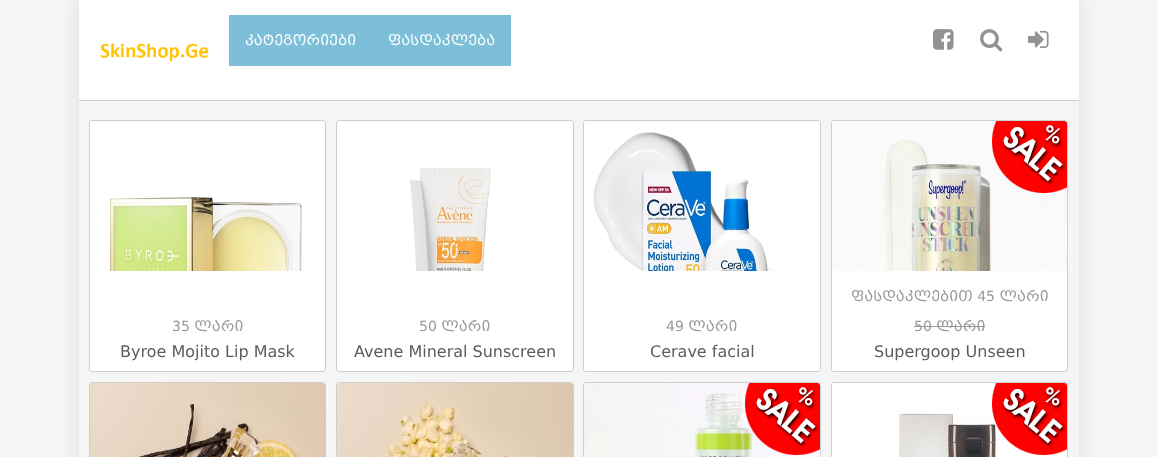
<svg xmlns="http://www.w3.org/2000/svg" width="1157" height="457">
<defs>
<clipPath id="clip1"><path d="M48 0h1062v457h-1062zm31 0h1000v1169h-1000z" clip-rule="evenodd"/></clipPath>
</defs>
<rect width="100%" height="100%" fill="#f5f5f5"/>
<g clip-path="url(#clip1)">
<rect x="79" width="1000" height="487" fill="#0000001a" filter="blur(10px)"/>
</g>
<rect x="79" y="100" width="1000" height="1" fill="#cecece"/>
<rect x="79" width="1000" height="100" fill="#fff"/>
<rect x="229" y="15" width="282" height="51" fill="#7dbfd9"/>
<text x="245" y="45" style="font-family:'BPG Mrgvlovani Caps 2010';font-size:14px;fill:#fff">კატეგორიები</text>
<text x="388" y="45" style="font-family:'BPG Mrgvlovani Caps 2010';font-size:14px;fill:#fff">ფასდაკლება</text>
<image x="933" y="29" width="21" height="21" href="media/1.png"/>
<image x="980" y="29" width="23" height="23" href="media/2.png"/>
<image x="1028" y="30" width="21" height="18" href="media/3.png"/>
<image x="100" y="43" width="109" height="19" href="media/4.png"/>
<rect x="89.5" y="120.5" width="236" height="251" rx="2.5" fill="#fff" stroke="#cecece"/>
<image x="109" y="196" width="193" height="75" href="media/5.png"/>
<text x="172" y="331" style="font-family:'BPG Mrgvlovani Caps 2010';font-size:14px;fill:#999">35 ლარი</text>
<text x="120" y="357" style="font-family:'BPG Mrgvlovani Caps 2010';font-size:16px;fill:#5c5c5c">Byroe Mojito Lip Mask</text>
<rect x="336.5" y="120.5" width="237" height="251" rx="2.5" fill="#fff" stroke="#cecece"/>
<image x="409" y="167" width="82" height="104" href="media/6.png"/>
<text x="419" y="331" style="font-family:'BPG Mrgvlovani Caps 2010';font-size:14px;fill:#999">50 ლარი</text>
<text x="354" y="357" style="font-family:'BPG Mrgvlovani Caps 2010';font-size:16px;fill:#5c5c5c">Avene Mineral Sunscreen</text>
<rect x="583.5" y="120.5" width="237" height="251" rx="2.5" fill="#fff" stroke="#cecece"/>
<image x="593" y="132" width="181" height="139" href="media/7.png"/>
<text x="666" y="331" style="font-family:'BPG Mrgvlovani Caps 2010';font-size:14px;fill:#999">49 ლარი</text>
<text x="650" y="357" style="font-family:'BPG Mrgvlovani Caps 2010';font-size:16px;fill:#5c5c5c">Cerave facial</text>
<rect x="831.5" y="120.5" width="236" height="251" rx="2.5" fill="#fff" stroke="#cecece"/>
<image x="832" y="121" width="235" height="150" href="media/8.png"/>
<image x="992" y="121" width="75" height="72" href="media/9.png"/>
<text x="851" y="301" style="font-family:'BPG Mrgvlovani Caps 2010';font-size:14px;fill:#999">ფასდაკლებით 45 ლარი</text>
<text x="914" y="331" style="font-family:'BPG Mrgvlovani Caps 2010';font-size:14px;fill:#999">50 ლარი</text>
<rect x="914" y="326" width="71" height="1" fill="#999"/>
<text x="874" y="357" style="font-family:'BPG Mrgvlovani Caps 2010';font-size:16px;fill:#5c5c5c">Supergoop Unseen</text>
<rect x="89.5" y="382.5" width="236" height="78" rx="2.5" fill="#fff" stroke="#cecece"/>
<image x="90" y="383" width="235" height="74" href="media/10.png"/>
<rect x="336.5" y="382.5" width="237" height="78" rx="2.5" fill="#fff" stroke="#cecece"/>
<image x="337" y="383" width="236" height="74" href="media/11.png"/>
<rect x="583.5" y="382.5" width="237" height="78" rx="2.5" fill="#fff" stroke="#cecece"/>
<image x="584" y="383" width="236" height="74" href="media/12.png"/>
<image x="745" y="383" width="75" height="72" href="media/13.png"/>
<rect x="831.5" y="382.5" width="236" height="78" rx="2.5" fill="#fff" stroke="#cecece"/>
<image x="899" y="413" width="97" height="44" href="media/14.png"/>
<image x="992" y="383" width="75" height="72" href="media/15.png"/>
</svg>
